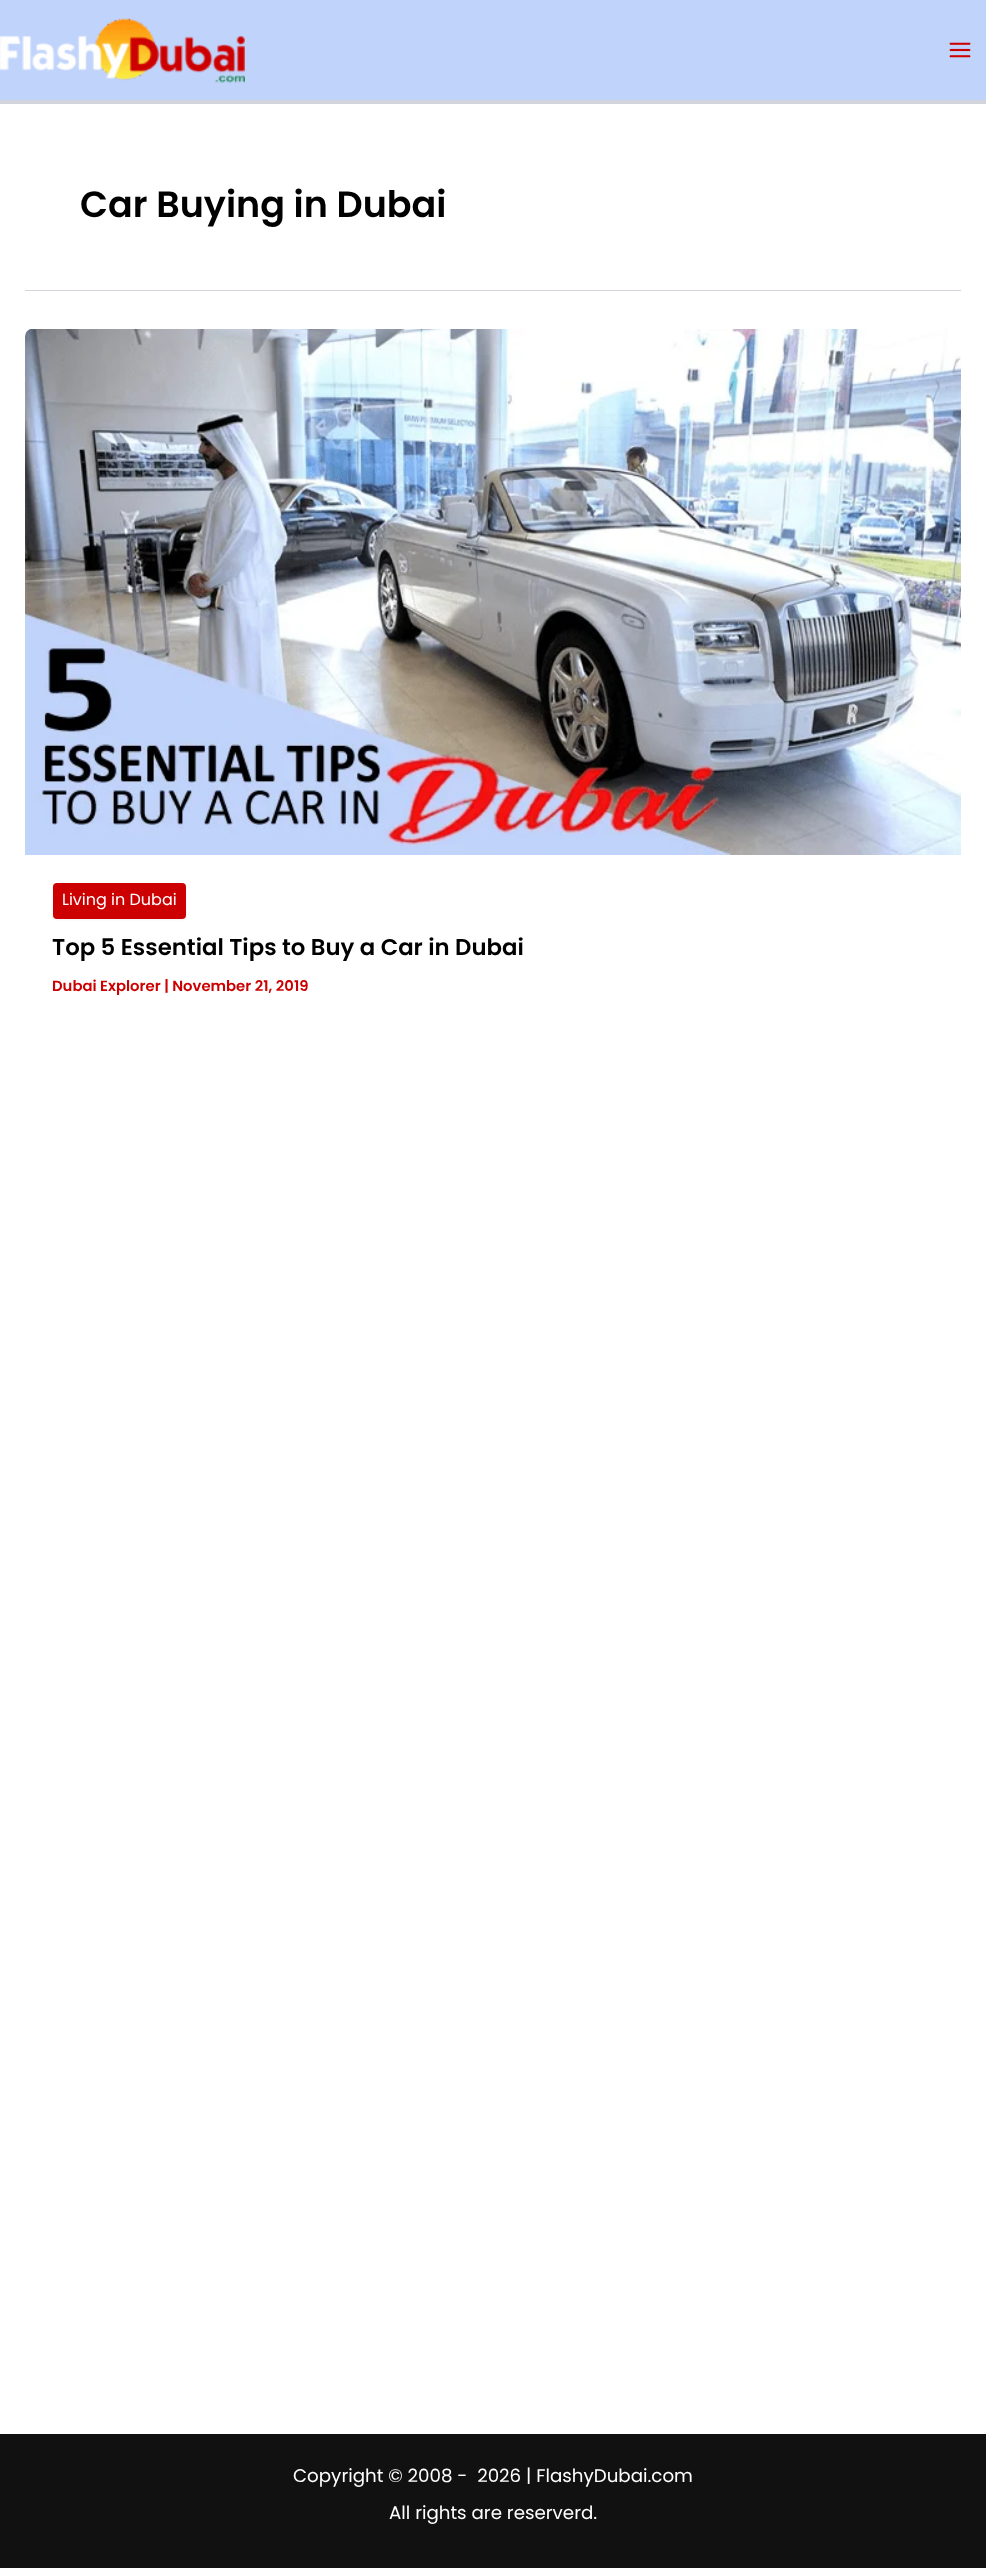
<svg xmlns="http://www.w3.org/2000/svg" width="986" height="2568">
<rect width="100%" height="100%" fill="#fff"/>
<rect width="986" height="100" fill="#c0d3fb"/>
<rect y="100" width="986" height="4" fill="#d1d5db"/>
<image x="0" y="18" width="245" height="65" href="media/1.png"/>
<image x="949" y="42" width="22" height="16" href="media/2.png"/>
<rect x="25" y="290" width="936" height="1" fill="#d1d5db"/>
<text x="80" y="217" style="font-family:Poppins;font-size:36.5px;font-weight:600;fill:#000">Car Buying in Dubai</text>
<image x="25" y="329" width="936" height="526" href="media/3.png"/>
<rect x="53" y="884" width="133" height="36" rx="4" fill="#0000000d" filter="blur(1px)"/>
<rect x="53" y="883" width="133" height="36" rx="4" fill="#c00"/>
<text x="62" y="905" style="font-family:Poppins;font-size:16px;fill:#fff">Living in Dubai</text>
<text x="52" y="955" style="font-family:Poppins;font-size:22.8px;font-weight:600;fill:#000">Top 5 Essential Tips to Buy a Car in Dubai</text>
<text x="52" y="991" style="font-family:Poppins;font-size:14.8px;font-weight:600;fill:#c00">Dubai Explorer | November 21, 2019</text>
<rect y="2434" width="986" height="134" fill="#111"/>
<text x="293" y="2482" style="font-family:Poppins;font-size:18.25px;fill:#fff" xml:space="preserve">Copyright © 2008 -  2026 | FlashyDubai.com</text>
<text x="389" y="2519" style="font-family:Poppins;font-size:18.25px;fill:#fff">All rights are reserverd.</text>
</svg>
